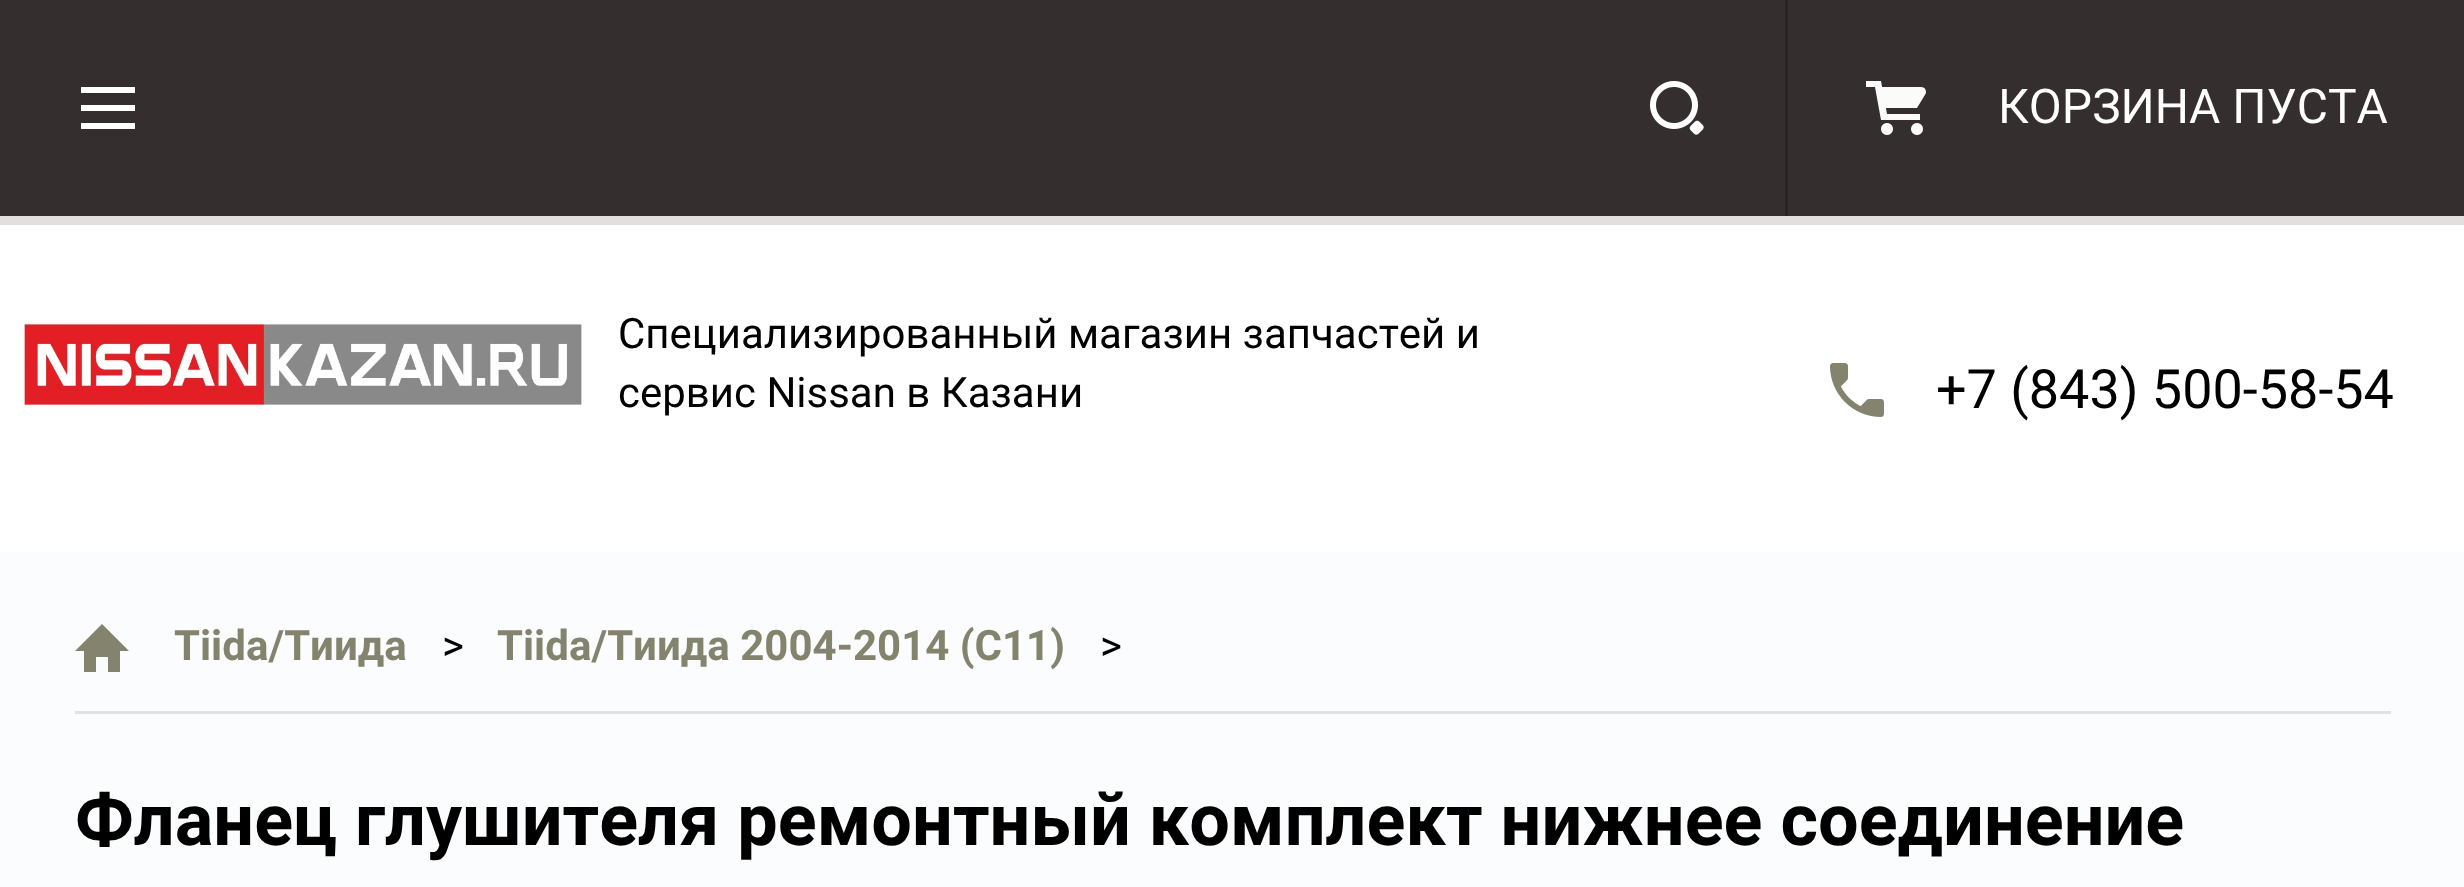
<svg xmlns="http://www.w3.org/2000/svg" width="2464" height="887">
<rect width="100%" height="100%" fill="#fdfdfa"/>
<rect y="225" width="2464" height="327" fill="#fff"/>
<rect y="216" width="2464" height="9" fill="#e0e0e0"/>
<rect width="2464" height="216" fill="#342e2e"/>
<path d="M81 129v-6h54v6zm0-24h54v6h-54zm0-18h54v6h-54z" fill="#fff" fill-rule="evenodd"/>
<image x="1650" y="81" width="54" height="54" href="media/1.png"/>
<rect x="1785" width="3" height="216" fill="#2a2525"/>
<image x="1866" y="81" width="60" height="54" href="media/2.png"/>
<text x="1998" y="123" style="font-family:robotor;font-size:48px;fill:#fff">КОРЗИНА ПУСТА</text>
<image x="23" y="322" width="559" height="85" href="media/3.png"/>
<text x="618" y="348" style="font-family:robotor;font-size:42px;fill:#000">Специализированный магазин запчастей и</text>
<text x="618" y="407" style="font-family:robotor;font-size:42px;fill:#000">сервис Nissan в Казани</text>
<image x="1830" y="363" width="54" height="54" href="media/4.png"/>
<text x="1936" y="408" style="font-family:robotor;font-size:54px;fill:#000">+7 (843) 500-58-54</text>
<rect y="552" width="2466" height="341" rx="6" fill="#fbfcfd"/>
<rect x="75" y="711" width="2316" height="3" fill="#e1e2e3"/>
<path d="M120 651v21h-12v-15h-12v15h-12v-21h-9l27-27l27 27z" fill="#84846e" fill-rule="evenodd"/>
<text x="174" y="660" style="font-family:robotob;font-size:42px;font-weight:bold;fill:#84846e">Tiida/Тиида</text>
<text x="442" y="660" style="font-family:robotor;font-size:42px;fill:#000">&gt;</text>
<text x="497" y="660" style="font-family:robotob;font-size:42px;font-weight:bold;fill:#84846e">Tiida/Тиида 2004-2014 (C11)</text>
<text x="1100" y="660" style="font-family:robotor;font-size:42px;fill:#000">&gt;</text>
<text x="75" y="845" style="font-family:robotob;font-size:72px;font-weight:bold;fill:#000">Фланец глушителя ремонтный комплект нижнее соединение</text>
</svg>
